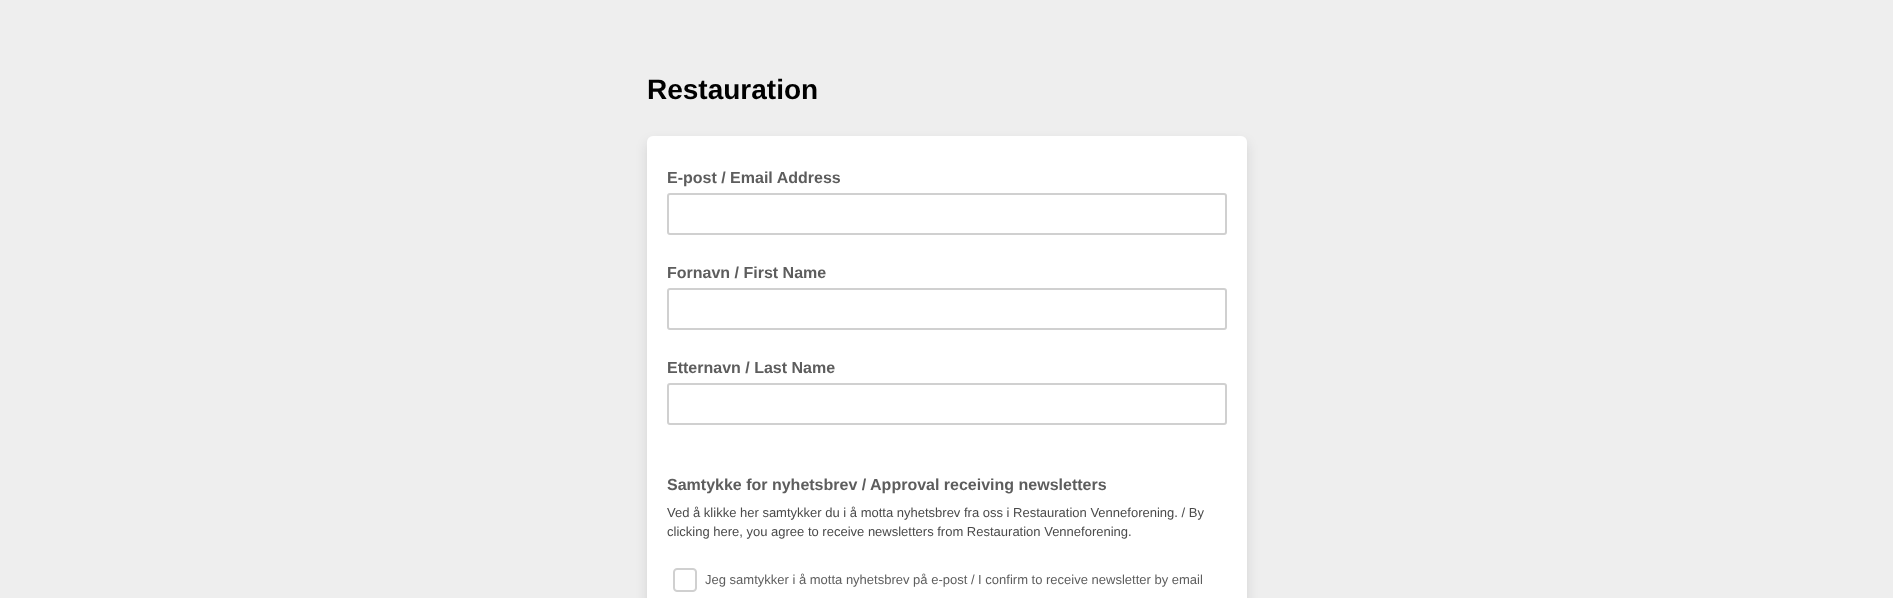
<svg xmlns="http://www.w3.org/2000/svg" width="1893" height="598">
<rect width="100%" height="100%" fill="#eee"/>
<text x="647" y="99" style="font-family:Liberation Sans;font-size:28px;font-weight:bold;fill:#000">Restauration</text>
<rect x="647" y="142" width="600" height="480" rx="6" fill="#0d12161f" filter="blur(6px)"/>
<rect x="647" y="136" width="600" height="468" rx="6" fill="#fff"/>
<text x="667" y="183" style="font-family:Liberation Sans;font-size:16px;font-weight:bold;fill:#5d5d5d">E-post / Email Address</text>
<rect x="668" y="194" width="558" height="40" rx="2" fill="none" stroke="#d0d0d0" stroke-width="2"/>
<text x="667" y="278" style="font-family:Liberation Sans;font-size:16px;font-weight:bold;fill:#5d5d5d">Fornavn / First Name</text>
<rect x="668" y="289" width="558" height="40" rx="2" fill="none" stroke="#d0d0d0" stroke-width="2"/>
<text x="667" y="373" style="font-family:Liberation Sans;font-size:16px;font-weight:bold;fill:#5d5d5d">Etternavn / Last Name</text>
<rect x="668" y="384" width="558" height="40" rx="2" fill="none" stroke="#d0d0d0" stroke-width="2"/>
<text x="667" y="490" style="font-family:Liberation Sans;font-size:16px;font-weight:bold;fill:#5d5d5d">Samtykke for nyhetsbrev / Approval receiving newsletters</text>
<text x="667" y="517" style="font-family:Liberation Sans;font-size:13px;fill:#4a4a4a">Ved å klikke her samtykker du i å motta nyhetsbrev fra oss i Restauration Venneforening. / By</text>
<text x="667" y="536" style="font-family:Liberation Sans;font-size:13px;fill:#4a4a4a">clicking here, you agree to receive newsletters from Restauration Venneforening.</text>
<image x="673" y="568" width="24" height="24" href="media/1.png"/>
<text x="705" y="584" style="font-family:Liberation Sans;font-size:13px;fill:#5d5d5d">Jeg samtykker i å motta nyhetsbrev på e-post / I confirm to receive newsletter by email</text>
</svg>
